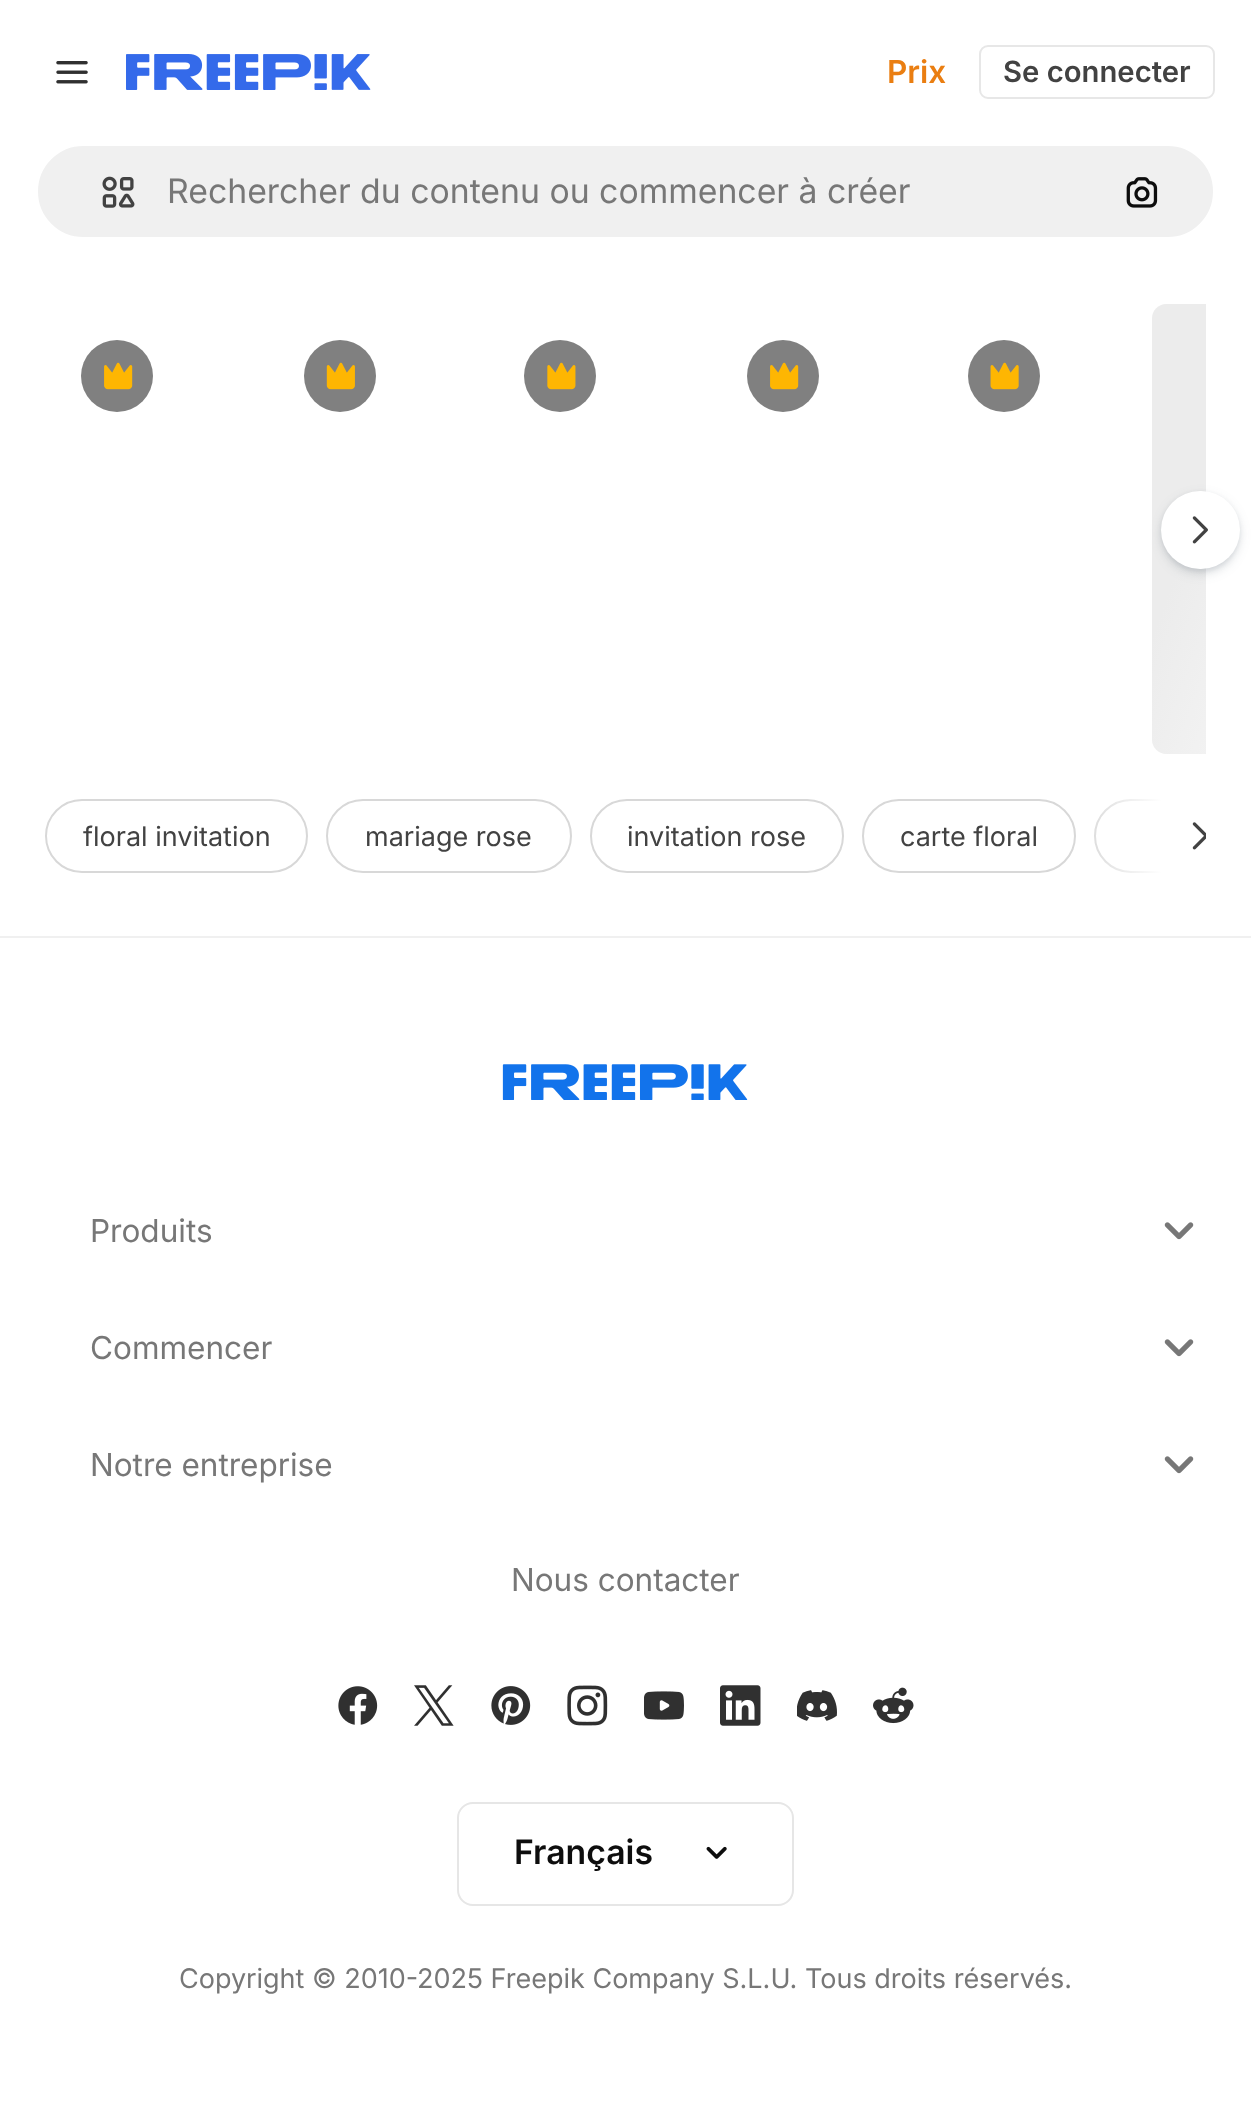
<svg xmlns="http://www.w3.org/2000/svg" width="1251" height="2107">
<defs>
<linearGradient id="g1" gradientUnits="userSpaceOnUse" x1="1159" y1="285" x2="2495" y2="772"><stop offset="0.08" stop-color="#ececec"/><stop offset="0.18" stop-color="#f5f5f5"/><stop offset="0.33" stop-color="#ececec"/></linearGradient>
<clipPath id="clip1"><rect x="45" y="799" width="1161" height="74"/></clipPath>
<linearGradient id="g2" gradientUnits="userSpaceOnUse" x1="1161" y1="836" x2="1082" y2="836"><stop offset="0" stop-color="#fff"/><stop offset="1" stop-color="#fff" stop-opacity="0"/></linearGradient>
</defs>
<rect width="100%" height="100%" fill="#fff"/>
<image x="56" y="61" width="32" height="23" href="media/1.png"/>
<image x="126" y="54" width="245" height="36" href="media/2.png"/>
<text x="887" y="83" style="font-family:Inter;font-size:31.5px;font-weight:600;fill:#ea7e11">Prix</text>
<rect x="980" y="46" width="234" height="52" rx="8" fill="none" stroke="#e7e7e7" stroke-width="2"/>
<text x="1003" y="82" style="font-family:Inter;font-size:29.25px;font-weight:600;fill:#424242">Se connecter</text>
<rect x="37" y="145" width="1177" height="93" rx="46.5" fill="#f0f0f0" stroke="#fff" stroke-width="2"/>
<image x="102" y="176" width="33" height="32" href="media/3.png"/>
<text x="167" y="203" style="font-family:Inter;font-size:33.75px;fill:#777">Rechercher du contenu ou commencer à créer</text>
<image x="1126" y="177" width="32" height="31" href="media/4.png"/>
<circle cx="117" cy="376" r="36" fill="#808080"/>
<image x="104" y="362" width="29" height="28" href="media/5.png"/>
<circle cx="340" cy="376" r="36" fill="#808080"/>
<image x="326" y="362" width="29" height="28" href="media/6.png"/>
<circle cx="560" cy="376" r="36" fill="#808080"/>
<image x="547" y="362" width="29" height="28" href="media/7.png"/>
<circle cx="783" cy="376" r="36" fill="#808080"/>
<image x="770" y="362" width="29" height="28" href="media/5.png"/>
<circle cx="1004" cy="376" r="36" fill="#808080"/>
<image x="990" y="362" width="29" height="28" href="media/8.png"/>
<path d="M1166 304h40v450h-40c-7.5 0-14-6.5-14-14v-422c0-7.5 6.5-14 14-14z" fill="url(#g1)"/>
<rect x="1161" y="495" width="79" height="79" rx="39.5" fill="#37495726" filter="blur(5.5px)"/>
<rect x="1161" y="493" width="79" height="79" rx="39.5" fill="#3749571a" filter="blur(2px)"/>
<rect x="1161" y="491" width="79" height="78" rx="39" fill="#fff"/>
<image x="1192" y="516" width="16" height="28" href="media/9.png"/>
<rect x="46" y="800" width="261" height="72" rx="36" fill="none" stroke="#d8d8d8" stroke-width="2"/>
<text x="83" y="846" style="font-family:Inter;font-size:27px;fill:#424242">floral invitation</text>
<rect x="327" y="800" width="244" height="72" rx="36" fill="none" stroke="#d8d8d8" stroke-width="2"/>
<text x="365" y="846" style="font-family:Inter;font-size:27px;fill:#424242">mariage rose</text>
<rect x="591" y="800" width="252" height="72" rx="36" fill="none" stroke="#d8d8d8" stroke-width="2"/>
<text x="627" y="846" style="font-family:Inter;font-size:27px;fill:#424242">invitation rose</text>
<rect x="863" y="800" width="212" height="72" rx="36" fill="none" stroke="#d8d8d8" stroke-width="2"/>
<text x="900" y="846" style="font-family:Inter;font-size:27px;fill:#424242">carte floral</text>
<g clip-path="url(#clip1)">
<rect x="1095" y="800" width="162" height="72" rx="36" fill="none" stroke="#d8d8d8" stroke-width="2"/>
</g>
<rect x="1161" y="799" width="45" height="74" fill="#fff"/>
<rect x="1094" y="799" width="67" height="74" fill="url(#g2)"/>
<image x="1192" y="822" width="14" height="28" href="media/10.png"/>
<rect y="936" width="1251" height="2" fill="#f0f0f0"/>
<image x="502" y="1064" width="246" height="36" href="media/11.png"/>
<text x="90" y="1242" style="font-family:Inter;font-size:31.5px;fill:#777">Produits</text>
<image x="1164" y="1222" width="30" height="18" href="media/12.png"/>
<text x="90" y="1359" style="font-family:Inter;font-size:31.5px;fill:#777">Commencer</text>
<image x="1164" y="1339" width="30" height="18" href="media/12.png"/>
<text x="90" y="1476" style="font-family:Inter;font-size:31.5px;fill:#777">Notre entreprise</text>
<image x="1164" y="1456" width="30" height="18" href="media/12.png"/>
<text x="511" y="1591" style="font-family:Inter;font-size:31.5px;fill:#777">Nous contacter</text>
<image x="338" y="1686" width="40" height="39" href="media/13.png"/>
<image x="414" y="1685" width="40" height="41" href="media/14.png"/>
<image x="491" y="1686" width="40" height="39" href="media/15.png"/>
<image x="567" y="1685" width="41" height="41" href="media/16.png"/>
<image x="644" y="1691" width="40" height="29" href="media/17.png"/>
<image x="720" y="1685" width="41" height="41" href="media/18.png"/>
<image x="797" y="1690" width="40" height="31" href="media/19.png"/>
<image x="873" y="1687" width="41" height="37" href="media/20.png"/>
<rect x="458" y="1803" width="335" height="102" rx="15" fill="none" stroke="#e6e6e6" stroke-width="2"/>
<text x="514" y="1864" style="font-family:Inter;font-size:33.75px;font-weight:600;fill:#0d0d0d">Français</text>
<image x="706" y="1846" width="21" height="13" href="media/21.png"/>
<text x="179" y="1988" style="font-family:Inter;font-size:27px;fill:#777">Copyright © 2010-</text>
<text x="417" y="1988" style="font-family:Inter;font-size:27px;fill:#777">2025 Freepik Company S.L.U. Tous droits réservés.</text>
</svg>
